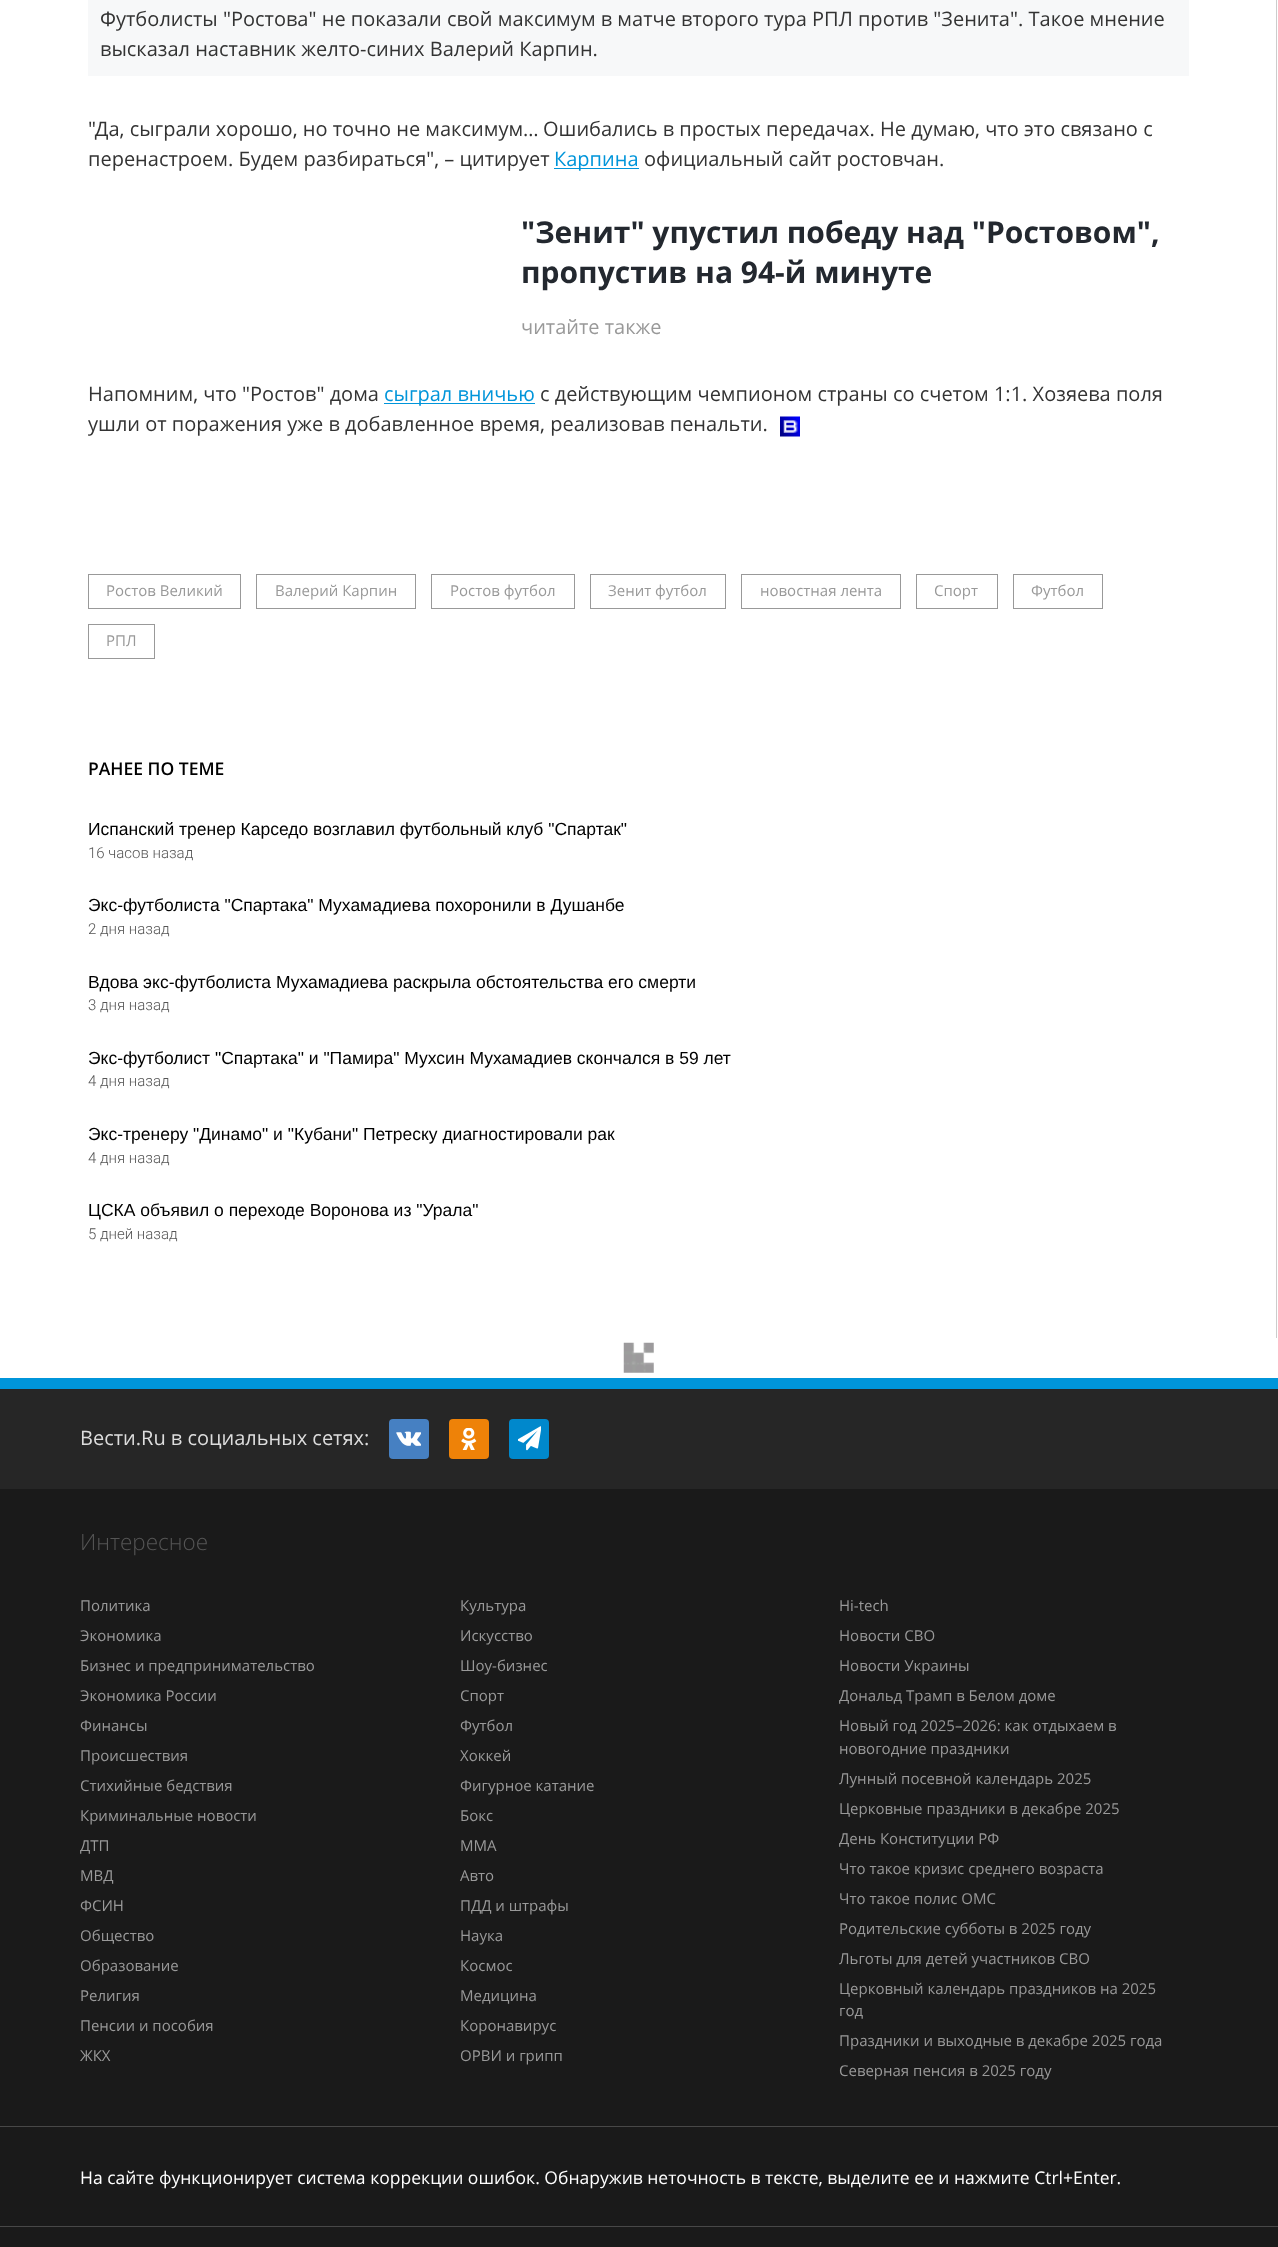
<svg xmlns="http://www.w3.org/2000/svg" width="1278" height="2247">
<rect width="100%" height="100%" fill="#fff"/>
<rect x="1276" width="1" height="1338" fill="#ccc"/>
<rect x="88" width="1101" height="76" fill="#f7f8f9"/>
<text x="100" y="26" style="font-family:Open Sans;font-size:20px;fill:#333">Футболисты "Ростова" не показали свой максимум в матче второго тура РПЛ против "Зенита". Такое мнение</text>
<text x="100" y="56" style="font-family:Open Sans;font-size:20px;fill:#333">высказал наставник желто-синих Валерий Карпин.</text>
<text x="88" y="136" style="font-family:Open Sans;font-size:20px;fill:#333">"Да, сыграли хорошо, но точно не максимум</text>
<text x="523" y="136" style="font-family:'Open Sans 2';font-size:20px;fill:#333">…</text>
<text x="543" y="136" style="font-family:Open Sans;font-size:20px;fill:#333">Ошибались в простых передачах. Не думаю, что это связано с</text>
<text x="88" y="166" style="font-family:Open Sans;font-size:20px;fill:#333">перенастроем. Будем разбираться", – цитирует</text>
<rect x="554" y="168" width="85" height="1" fill="#0095da"/>
<text x="554" y="166" style="font-family:Open Sans;font-size:20px;fill:#0095da">Карпина</text>
<text x="644" y="166" style="font-family:Open Sans;font-size:20px;fill:#333">официальный сайт ростовчан.</text>
<text x="521" y="243" style="font-family:Open Sans;font-size:30px;font-weight:bold;fill:#23282f">"Зенит" упустил победу над "Ростовом",</text>
<text x="521" y="283" style="font-family:Open Sans;font-size:30px;font-weight:bold;fill:#23282f">пропустив на 94-й минуте</text>
<text x="521" y="334" style="font-family:Open Sans;font-size:20px;fill:#999">читайте также</text>
<text x="88" y="401" style="font-family:Open Sans;font-size:20px;fill:#333">Напомним, что "Ростов" дома</text>
<rect x="384" y="403" width="151" height="1" fill="#0095da"/>
<text x="384" y="401" style="font-family:Open Sans;font-size:20px;fill:#0095da">сыграл вничью</text>
<text x="540" y="401" style="font-family:Open Sans;font-size:20px;fill:#333">с действующим чемпионом страны со счетом 1:1. Хозяева поля</text>
<text x="88" y="431" style="font-family:Open Sans;font-size:20px;fill:#333">ушли от поражения уже в добавленное время, реализовав пенальти.</text>
<image x="780" y="416" width="20" height="21" href="media/1.png"/>
<rect x="88.5" y="574.5" width="152" height="34" fill="none" stroke="#999"/>
<text x="106" y="596" style="font-family:Open Sans;font-size:15px;fill:#999">Ростов Великий</text>
<rect x="256.5" y="574.5" width="159" height="34" fill="none" stroke="#999"/>
<text x="275" y="596" style="font-family:Open Sans;font-size:15px;fill:#999">Валерий Карпин</text>
<rect x="431.5" y="574.5" width="143" height="34" fill="none" stroke="#999"/>
<text x="450" y="596" style="font-family:Open Sans;font-size:15px;fill:#999">Ростов футбол</text>
<rect x="590.5" y="574.5" width="135" height="34" fill="none" stroke="#999"/>
<text x="608" y="596" style="font-family:Open Sans;font-size:15px;fill:#999">Зенит футбол</text>
<rect x="741.5" y="574.5" width="159" height="34" fill="none" stroke="#999"/>
<text x="760" y="596" style="font-family:Open Sans;font-size:15px;fill:#999">новостная лента</text>
<rect x="916.5" y="574.5" width="81" height="34" fill="none" stroke="#999"/>
<text x="934" y="596" style="font-family:Open Sans;font-size:15px;fill:#999">Спорт</text>
<rect x="1013.5" y="574.5" width="89" height="34" fill="none" stroke="#999"/>
<text x="1031" y="596" style="font-family:Open Sans;font-size:15px;fill:#999">Футбол</text>
<rect x="88.5" y="624.5" width="66" height="34" fill="none" stroke="#999"/>
<text x="106" y="646" style="font-family:Open Sans;font-size:15px;fill:#999">РПЛ</text>
<text x="88" y="775" style="font-family:Open Sans;font-size:17.5px;font-weight:600;fill:#000">РАНЕЕ ПО ТЕМЕ</text>
<text x="88" y="835" style="font-family:Arimo;font-size:17.5px;fill:#000">Испанский тренер Карседо возглавил футбольный клуб "Спартак"</text>
<text x="88" y="858" style="font-family:Roboto;font-size:15px;font-weight:300;fill:#555">16 часов назад</text>
<text x="88" y="911" style="font-family:Arimo;font-size:17.5px;fill:#000">Экс-футболиста "Спартака" Мухамадиева похоронили в Душанбе</text>
<text x="88" y="934" style="font-family:Roboto;font-size:15px;font-weight:300;fill:#555">2 дня назад</text>
<text x="88" y="988" style="font-family:Arimo;font-size:17.5px;fill:#000">Вдова экс-футболиста Мухамадиева раскрыла обстоятельства его смерти</text>
<text x="88" y="1010" style="font-family:Roboto;font-size:15px;font-weight:300;fill:#555">3 дня назад</text>
<text x="88" y="1064" style="font-family:Arimo;font-size:17.5px;fill:#000">Экс-футболист "Спартака" и "Памира" Мухсин Мухамадиев скончался в 59 лет</text>
<text x="88" y="1086" style="font-family:Roboto;font-size:15px;font-weight:300;fill:#555">4 дня назад</text>
<text x="88" y="1140" style="font-family:Arimo;font-size:17.5px;fill:#000">Экс-тренеру "Динамо" и "Кубани" Петреску диагностировали рак</text>
<text x="88" y="1163" style="font-family:Roboto;font-size:15px;font-weight:300;fill:#555">4 дня назад</text>
<text x="88" y="1216" style="font-family:Arimo;font-size:17.5px;fill:#000">ЦСКА объявил о переходе Воронова из "Урала"</text>
<text x="88" y="1239" style="font-family:Roboto;font-size:15px;font-weight:300;fill:#555">5 дней назад</text>
<image x="623" y="1342" width="31" height="31" href="media/2.png"/>
<rect y="1489" width="1278" height="758" fill="#1a1a1a"/>
<rect y="1378" width="1278" height="11" fill="#0095da"/>
<rect y="1389" width="1278" height="100" fill="#262626"/>
<text x="80" y="1445" style="font-family:Open Sans;font-size:20px;fill:#ddd">Вести.Ru в социальных сетях:</text>
<rect x="389" y="1419" width="40" height="40" rx="4" fill="#4680c2"/>
<image x="396" y="1431" width="25" height="15" href="media/3.png"/>
<rect x="449" y="1419" width="40" height="40" rx="4" fill="#ee8208"/>
<image x="461" y="1428" width="16" height="22" href="media/4.png"/>
<rect x="509" y="1419" width="40" height="40" rx="4" fill="#08c"/>
<image x="518" y="1426" width="23" height="25" href="media/5.png"/>
<text x="80" y="1550" style="font-family:Open Sans;font-size:22.5px;font-weight:300;fill:#555">Интересное</text>
<text x="80" y="1611" style="font-family:Open Sans;font-size:15px;fill:#999">Политика</text>
<text x="460" y="1611" style="font-family:Open Sans;font-size:15px;fill:#999">Культура</text>
<text x="839" y="1611" style="font-family:Open Sans;font-size:15px;fill:#999">Hi-tech</text>
<text x="80" y="1641" style="font-family:Open Sans;font-size:15px;fill:#999">Экономика</text>
<text x="460" y="1641" style="font-family:Open Sans;font-size:15px;fill:#999">Искусство</text>
<text x="839" y="1641" style="font-family:Open Sans;font-size:15px;fill:#999">Новости СВО</text>
<text x="80" y="1671" style="font-family:Open Sans;font-size:15px;fill:#999">Бизнес и предпринимательство</text>
<text x="460" y="1671" style="font-family:Open Sans;font-size:15px;fill:#999">Шоу-бизнес</text>
<text x="839" y="1671" style="font-family:Open Sans;font-size:15px;fill:#999">Новости Украины</text>
<text x="80" y="1701" style="font-family:Open Sans;font-size:15px;fill:#999">Экономика России</text>
<text x="460" y="1701" style="font-family:Open Sans;font-size:15px;fill:#999">Спорт</text>
<text x="839" y="1701" style="font-family:Open Sans;font-size:15px;fill:#999">Дональд Трамп в Белом доме</text>
<text x="80" y="1731" style="font-family:Open Sans;font-size:15px;fill:#999">Финансы</text>
<text x="460" y="1731" style="font-family:Open Sans;font-size:15px;fill:#999">Футбол</text>
<text x="839" y="1731" style="font-family:Open Sans;font-size:15px;fill:#999">Новый год 2025–2026: как отдыхаем в</text>
<text x="839" y="1754" style="font-family:Open Sans;font-size:15px;fill:#999">новогодние праздники</text>
<text x="80" y="1761" style="font-family:Open Sans;font-size:15px;fill:#999">Происшествия</text>
<text x="460" y="1761" style="font-family:Open Sans;font-size:15px;fill:#999">Хоккей</text>
<text x="80" y="1791" style="font-family:Open Sans;font-size:15px;fill:#999">Стихийные бедствия</text>
<text x="460" y="1791" style="font-family:Open Sans;font-size:15px;fill:#999">Фигурное катание</text>
<text x="839" y="1784" style="font-family:Open Sans;font-size:15px;fill:#999">Лунный посевной календарь 2025</text>
<text x="80" y="1821" style="font-family:Open Sans;font-size:15px;fill:#999">Криминальные новости</text>
<text x="460" y="1821" style="font-family:Open Sans;font-size:15px;fill:#999">Бокс</text>
<text x="839" y="1814" style="font-family:Open Sans;font-size:15px;fill:#999">Церковные праздники в декабре 2025</text>
<text x="80" y="1851" style="font-family:Open Sans;font-size:15px;fill:#999">ДТП</text>
<text x="460" y="1851" style="font-family:Open Sans;font-size:15px;fill:#999">ММА</text>
<text x="839" y="1844" style="font-family:Open Sans;font-size:15px;fill:#999">День Конституции РФ</text>
<text x="80" y="1881" style="font-family:Open Sans;font-size:15px;fill:#999">МВД</text>
<text x="460" y="1881" style="font-family:Open Sans;font-size:15px;fill:#999">Авто</text>
<text x="839" y="1874" style="font-family:Open Sans;font-size:15px;fill:#999">Что такое кризис среднего возраста</text>
<text x="80" y="1911" style="font-family:Open Sans;font-size:15px;fill:#999">ФСИН</text>
<text x="460" y="1911" style="font-family:Open Sans;font-size:15px;fill:#999">ПДД и штрафы</text>
<text x="839" y="1904" style="font-family:Open Sans;font-size:15px;fill:#999">Что такое полис ОМС</text>
<text x="80" y="1941" style="font-family:Open Sans;font-size:15px;fill:#999">Общество</text>
<text x="460" y="1941" style="font-family:Open Sans;font-size:15px;fill:#999">Наука</text>
<text x="839" y="1934" style="font-family:Open Sans;font-size:15px;fill:#999">Родительские субботы в 2025 году</text>
<text x="80" y="1971" style="font-family:Open Sans;font-size:15px;fill:#999">Образование</text>
<text x="460" y="1971" style="font-family:Open Sans;font-size:15px;fill:#999">Космос</text>
<text x="839" y="1964" style="font-family:Open Sans;font-size:15px;fill:#999">Льготы для детей участников СВО</text>
<text x="80" y="2001" style="font-family:Open Sans;font-size:15px;fill:#999">Религия</text>
<text x="460" y="2001" style="font-family:Open Sans;font-size:15px;fill:#999">Медицина</text>
<text x="839" y="1994" style="font-family:Open Sans;font-size:15px;fill:#999">Церковный календарь праздников на 2025</text>
<text x="839" y="2016" style="font-family:Open Sans;font-size:15px;fill:#999">год</text>
<text x="80" y="2031" style="font-family:Open Sans;font-size:15px;fill:#999">Пенсии и пособия</text>
<text x="460" y="2031" style="font-family:Open Sans;font-size:15px;fill:#999">Коронавирус</text>
<text x="839" y="2046" style="font-family:Open Sans;font-size:15px;fill:#999">Праздники и выходные в декабре 2025 года</text>
<text x="80" y="2061" style="font-family:Open Sans;font-size:15px;fill:#999">ЖКХ</text>
<text x="460" y="2061" style="font-family:Open Sans;font-size:15px;fill:#999">ОРВИ и грипп</text>
<text x="839" y="2076" style="font-family:Open Sans;font-size:15px;fill:#999">Северная пенсия в 2025 году</text>
<rect y="2126" width="1278" height="1" fill="#484848"/>
<rect y="2226" width="1278" height="1" fill="#484848"/>
<text x="80" y="2184" style="font-family:Open Sans;font-size:17.5px;fill:#fff">На сайте функционирует система коррекции ошибок. Обнаружив неточность в тексте, выделите ее и нажмите Ctrl+Enter.</text>
</svg>
